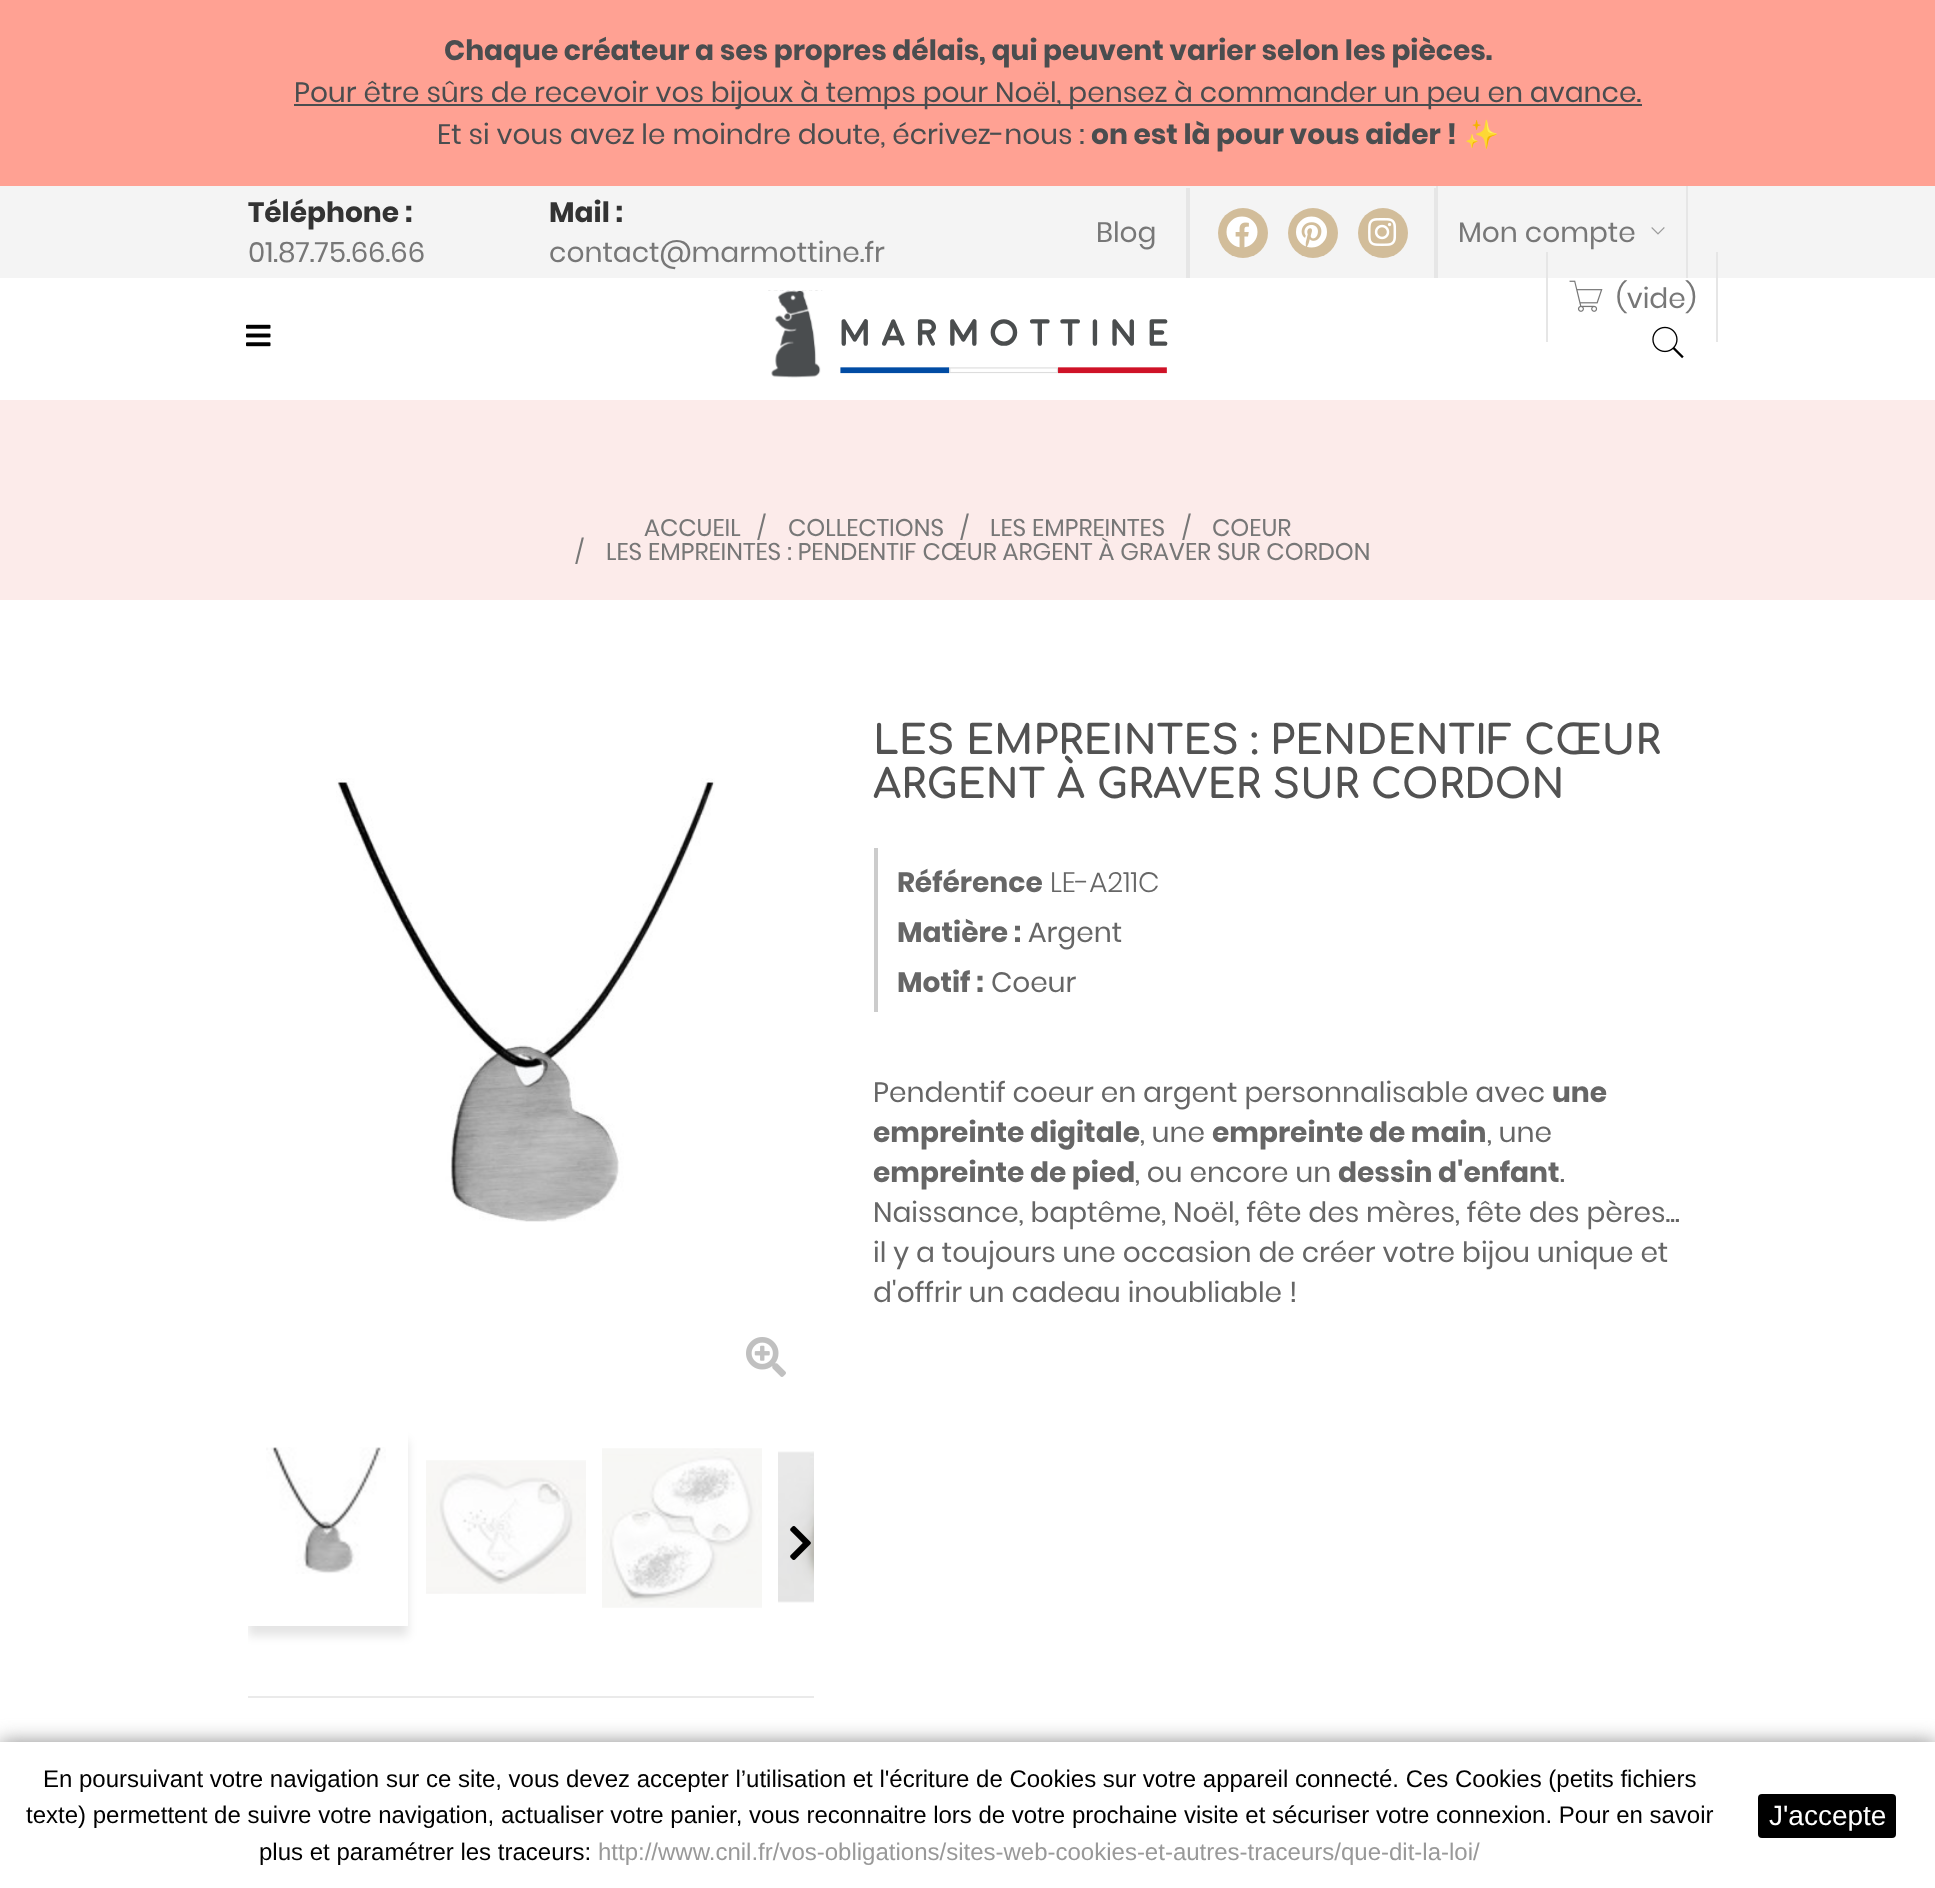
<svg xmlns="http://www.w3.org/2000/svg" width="1935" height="1888">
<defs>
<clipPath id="clip1"><rect x="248" y="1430" width="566" height="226"/></clipPath>
<clipPath id="clip2"><path d="M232 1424h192v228h-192zm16 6h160v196h-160z" clip-rule="evenodd"/></clipPath>
</defs>
<rect width="100%" height="100%" fill="#fff"/>
<rect width="1935" height="186" fill="#ffa193"/>
<text x="444" y="60" style="font-family:Poppins;font-size:28px;font-weight:bold;fill:#4a4d4f">Chaque créateur a ses propres délais, qui peuvent varier selon les pièces.</text>
<rect x="294" y="104" width="1348" height="2" fill="#4a4d4f"/>
<text x="294" y="102" style="font-family:Poppins;font-size:28px;fill:#4a4d4f">Pour être sûrs de recevoir vos bijoux à temps pour Noël, pensez à commander un peu en avance.</text>
<text x="437" y="144" style="font-family:Poppins;font-size:28px;fill:#4a4d4f">Et si vous avez le moindre doute, écrivez-nous :</text>
<text x="1091" y="144" style="font-family:Poppins;font-size:28px;font-weight:bold;fill:#4a4d4f">on est là pour vous aider !</text>
<text x="1464" y="144" style="font-family:Noto Color Emoji;font-size:28px;fill:#4a4d4f">✨</text>
<rect y="186" width="1935" height="92" fill="#f4f4f4"/>
<text x="248" y="222" style="font-family:Poppins;font-size:28px;font-weight:bold;fill:#333">Téléphone :</text>
<text x="248" y="262" style="font-family:Poppins;font-size:28px;fill:#777">01.87.75.66.66</text>
<text x="549" y="222" style="font-family:Poppins;font-size:28px;font-weight:bold;fill:#333">Mail :</text>
<text x="549" y="262" style="font-family:Poppins;font-size:28px;fill:#777">contact@marmottine.fr</text>
<text x="1096" y="242" style="font-family:Poppins;font-size:28px;fill:#777">Blog</text>
<rect x="1186" y="188" width="4" height="90" fill="#e6e6e6"/>
<circle cx="1243" cy="233" r="25" fill="#d2bd9a"/>
<image x="1226" y="216" width="32" height="32" href="media/1.png"/>
<circle cx="1313" cy="233" r="25" fill="#d2bd9a"/>
<image x="1296" y="216" width="31" height="32" href="media/2.png"/>
<circle cx="1383" cy="233" r="25" fill="#d2bd9a"/>
<image x="1368" y="218" width="29" height="28" href="media/3.png"/>
<rect x="1434" y="188" width="2" height="90" fill="#e6e6e6"/>
<rect x="1686" y="186" width="2" height="92" fill="#e6e6e6"/>
<rect x="1436" y="186" width="2" height="92" fill="#e6e6e6"/>
<text x="1458" y="242" style="font-family:Poppins;font-size:28px;fill:#777">Mon compte</text>
<image x="1651" y="227" width="14" height="8" href="media/4.png"/>
<rect x="1546" y="252" width="2" height="90" fill="#e6e6e6"/>
<image x="1569" y="280" width="34" height="32" href="media/5.png"/>
<text x="1616" y="308" style="font-family:Poppins;font-size:28px;fill:#777">(vide)</text>
<rect x="1716" y="252" width="2" height="90" fill="#e6e6e6"/>
<image x="768" y="290" width="400" height="88" href="media/6.png"/>
<image x="246" y="324" width="25" height="23" href="media/7.png"/>
<image x="1652" y="326" width="32" height="33" href="media/8.png"/>
<rect y="400" width="1935" height="200" fill="#fcebea"/>
<text x="644" y="536" style="font-family:Poppins;font-size:24px;fill:#777">ACCUEIL</text>
<text x="757" y="536" style="font-family:Poppins;font-size:24px;fill:#777">/</text>
<text x="788" y="536" style="font-family:Poppins;font-size:24px;fill:#777">COLLECTIONS</text>
<text x="960" y="536" style="font-family:Poppins;font-size:24px;fill:#777">/</text>
<text x="990" y="536" style="font-family:Poppins;font-size:24px;fill:#777">LES EMPREINTES</text>
<text x="1182" y="536" style="font-family:Poppins;font-size:24px;fill:#777">/</text>
<text x="1212" y="536" style="font-family:Poppins;font-size:24px;fill:#777">COEUR</text>
<text x="575" y="560" style="font-family:Poppins;font-size:24px;fill:#777">/</text>
<text x="606" y="560" style="font-family:Poppins;font-size:24px;fill:#777">LES EMPREINTES : PENDENTIF CŒUR ARGENT À GRAVER SUR CORDON</text>
<image x="336" y="778" width="379" height="444" href="media/9.png"/>
<image x="746" y="1337" width="40" height="40" href="media/10.png"/>
<g clip-path="url(#clip1)">
<g clip-path="url(#clip2)">
<rect x="248" y="1440" width="160" height="196" fill="#0000001a" filter="blur(5px)"/>
</g>
</g>
<image x="266" y="1447" width="120" height="127" href="media/11.png"/>
<image x="426" y="1460" width="160" height="134" href="media/12.png"/>
<image x="602" y="1448" width="160" height="160" href="media/13.png"/>
<image x="778" y="1451" width="36" height="152" href="media/14.png"/>
<image x="790" y="1526" width="21" height="34" href="media/15.png"/>
<rect x="248" y="1696" width="566" height="2" fill="#eaeaea"/>
<text x="873" y="754" style="font-family:Comfortaa;font-size:40px;font-weight:bold;fill:#525252">LES EMPREINTES : PENDENTIF CŒUR</text>
<text x="873" y="798" style="font-family:Comfortaa;font-size:40px;font-weight:bold;fill:#525252">ARGENT À GRAVER SUR CORDON</text>
<rect x="874" y="848" width="4" height="164" fill="#ccc"/>
<text x="897" y="892" style="font-family:Poppins;font-size:28px;font-weight:bold;fill:#666">Référence</text>
<text x="1050" y="892" style="font-family:Poppins;font-size:28px;font-weight:300;fill:#666">LE-A211C</text>
<text x="897" y="942" style="font-family:Poppins;font-size:28px;font-weight:bold;fill:#666">Matière :</text>
<text x="1028" y="942" style="font-family:Poppins;font-size:28px;fill:#666">Argent</text>
<text x="897" y="992" style="font-family:Poppins;font-size:28px;font-weight:bold;fill:#666">Motif :</text>
<text x="991" y="992" style="font-family:Poppins;font-size:28px;fill:#666">Coeur</text>
<text x="873" y="1102" style="font-family:Poppins;font-size:28px;fill:#666">Pendentif coeur en argent personnalisable avec</text>
<text x="1552" y="1102" style="font-family:Poppins;font-size:28px;font-weight:bold;fill:#666">une</text>
<text x="873" y="1142" style="font-family:Poppins;font-size:28px;font-weight:bold;fill:#666">empreinte digitale</text>
<text x="1140" y="1142" style="font-family:Poppins;font-size:28px;fill:#666">, une</text>
<text x="1212" y="1142" style="font-family:Poppins;font-size:28px;font-weight:bold;fill:#666">empreinte de main</text>
<text x="1487" y="1142" style="font-family:Poppins;font-size:28px;fill:#666">, une</text>
<text x="873" y="1182" style="font-family:Poppins;font-size:28px;font-weight:bold;fill:#666">empreinte de pied</text>
<text x="1135" y="1182" style="font-family:Poppins;font-size:28px;fill:#666">, ou encore un</text>
<text x="1338" y="1182" style="font-family:Poppins;font-size:28px;font-weight:bold;fill:#666">dessin d'enfant</text>
<text x="1560" y="1182" style="font-family:Poppins;font-size:28px;fill:#666">.</text>
<text x="873" y="1222" style="font-family:Poppins;font-size:28px;fill:#666">Naissance, baptême, Noël, fête des mères, fête des pères...</text>
<text x="873" y="1262" style="font-family:Poppins;font-size:28px;fill:#666">il y a toujours une occasion de créer votre bijou unique et</text>
<text x="873" y="1302" style="font-family:Poppins;font-size:28px;fill:#666">d'offrir un cadeau inoubliable !</text>
<rect y="1742" width="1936" height="146" fill="#8c8c8c" filter="blur(10px)"/>
<rect y="1742" width="1935" height="146" fill="#fff"/>
<text x="43" y="1787" style="font-family:Liberation Sans;font-size:24px;fill:#000">En poursuivant votre navigation sur ce site, vous devez accepter l’utilisation et l'écriture de Cookies sur votre appareil connecté. Ces Cookies (petits fichiers</text>
<text x="26" y="1823" style="font-family:Liberation Sans;font-size:24px;fill:#000">texte) permettent de suivre votre navigation, actualiser votre panier, vous reconnaitre lors de votre prochaine visite et sécuriser votre connexion. Pour en savoir</text>
<text x="259" y="1860" style="font-family:Liberation Sans;font-size:24px;fill:#000">plus et paramétrer les traceurs:</text>
<text x="598" y="1860" style="font-family:Liberation Sans;font-size:24px;fill:#999">http://www.cnil.fr/vos-obligations/sites-web-cookies-et-autres-traceurs/que-dit-la-loi/</text>
<rect x="1758" y="1794" width="138" height="44" rx="4" fill="#000"/>
<text x="1769" y="1825" style="font-family:Liberation Sans;font-size:28px;fill:#fff">J'accepte</text>
</svg>
